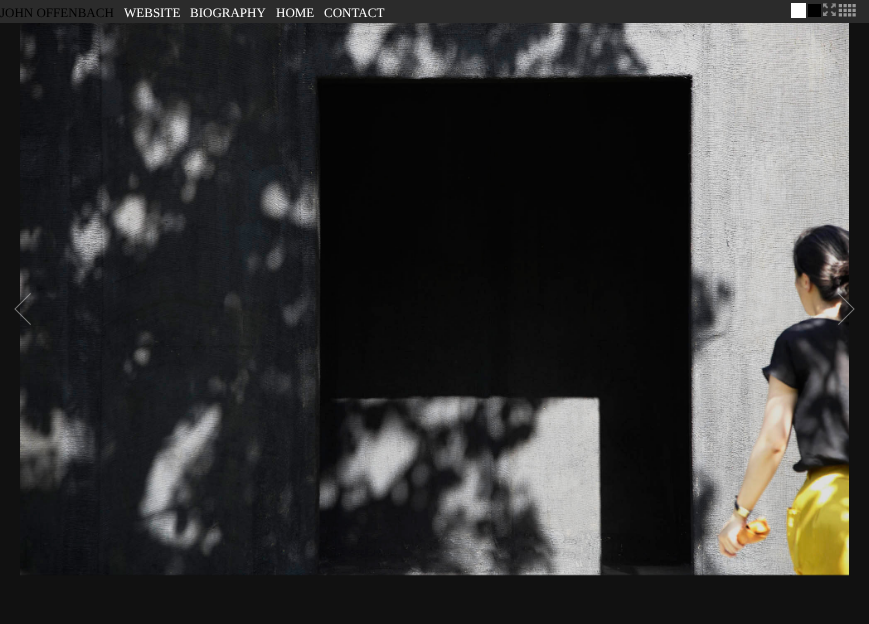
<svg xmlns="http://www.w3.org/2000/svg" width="869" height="624">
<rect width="100%" height="100%" fill="#111"/>
<rect width="869" height="23" fill="#2b2b2b"/>
<text x="0" y="17" style="font-family:Liberation Serif;font-size:13px;fill:#000">JOHN OFFENBACH</text>
<text x="124" y="17" style="font-family:Liberation Serif;font-size:13px;fill:#fff">WEBSITE</text>
<text x="190" y="17" style="font-family:Liberation Serif;font-size:13px;fill:#fff">BIOGRAPHY</text>
<text x="276" y="17" style="font-family:Liberation Serif;font-size:13px;fill:#fff">HOME</text>
<text x="324" y="17" style="font-family:Liberation Serif;font-size:13px;fill:#fff">CONTACT</text>
<rect x="791" y="3" width="15" height="15" fill="#fff"/>
<rect x="808" y="4" width="13" height="13" fill="#000"/>
<image x="823" y="3" width="13" height="13" href="media/1.png"/>
<image x="838" y="4" width="18" height="13" href="media/2.png"/>
<image x="20" y="23" width="829" height="553" href="media/5.png"/>
<image x="14" y="293" width="17" height="32" href="media/3.png"/>
<image x="838" y="293" width="17" height="32" href="media/4.png"/>
</svg>
